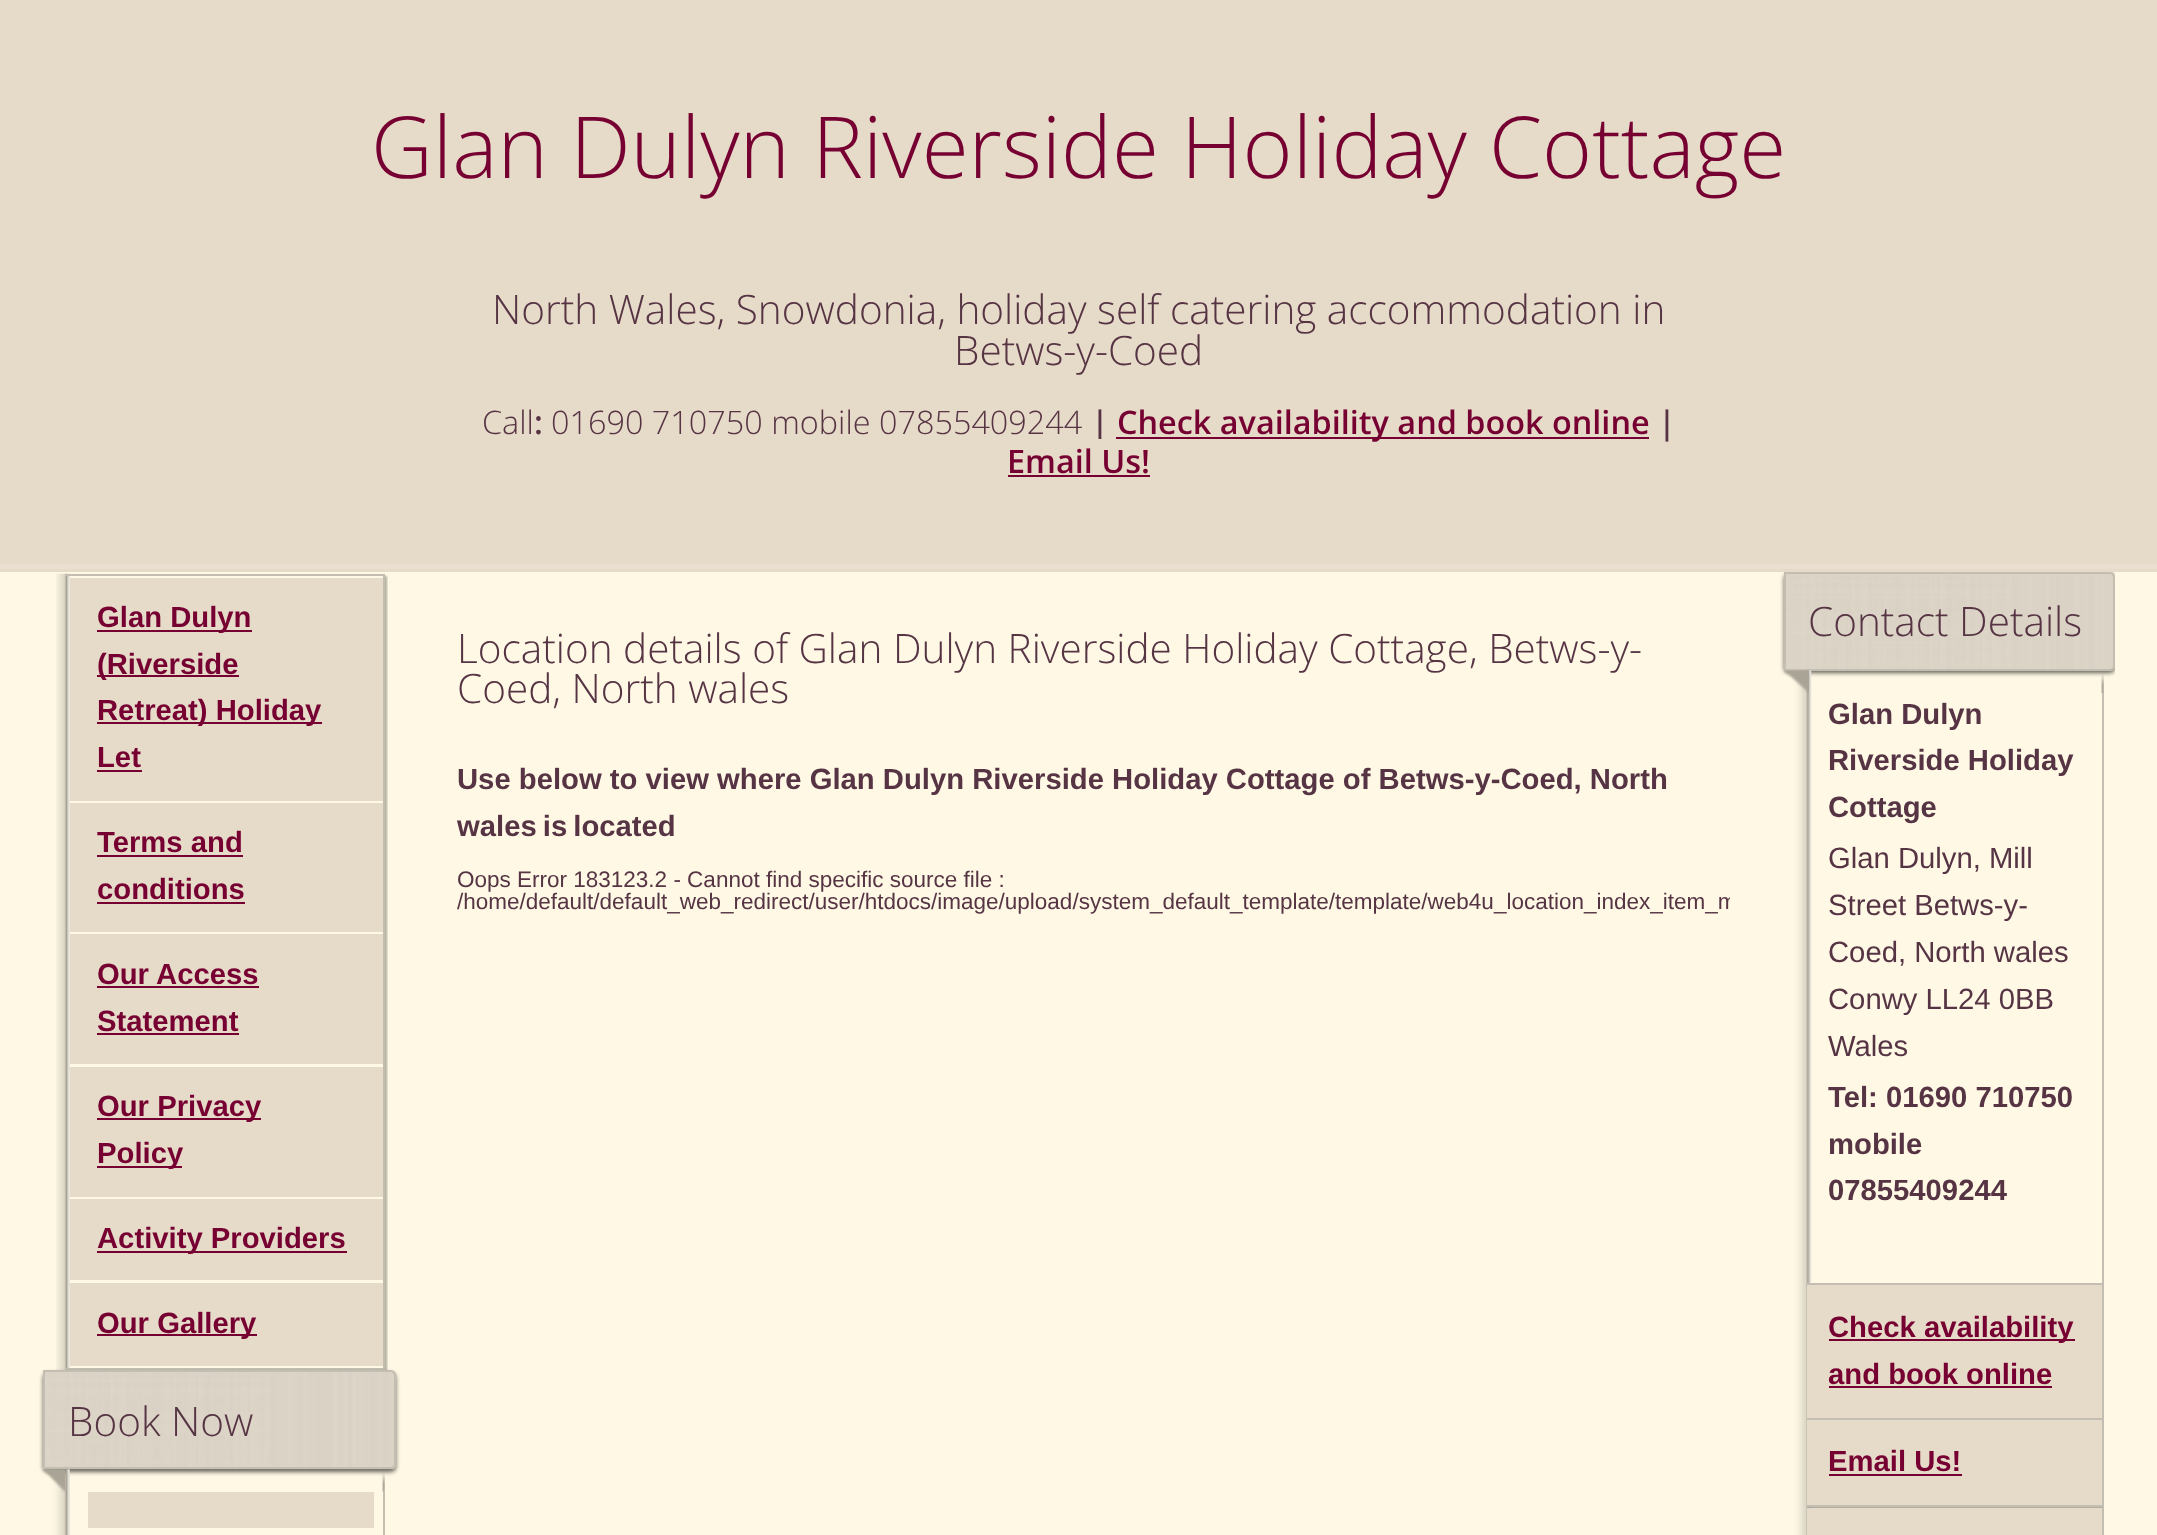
<svg xmlns="http://www.w3.org/2000/svg" width="2157" height="1535">
<defs>
<clipPath id="clip1"><rect x="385" y="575" width="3" height="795"/></clipPath>
<clipPath id="clip2"><rect x="457" y="572" width="1273" height="342"/></clipPath>
<clipPath id="clip3"><rect x="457" y="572" width="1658" height="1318"/></clipPath>
<clipPath id="clip4"><rect x="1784" y="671" width="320" height="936"/></clipPath>
</defs>
<rect width="100%" height="100%" fill="#fef8e5"/>
<rect width="2157" height="572" fill="#e6dac8"/>
<rect y="564" width="2157" height="5" fill="#eae0d1"/>
<text x="371" y="178" style="font-family:Open Sans;font-size:85.5px;font-weight:300;fill:#760031">Glan Dulyn Riverside Holiday Cottage</text>
<text x="492" y="324" style="font-family:Open Sans;font-size:40.5px;font-weight:300;fill:#563444">North Wales, Snowdonia, holiday self catering accommodation in</text>
<text x="954" y="365" style="font-family:Open Sans;font-size:40.5px;font-weight:300;fill:#563444">Betws-y-Coed</text>
<text x="482" y="434" style="font-family:Open Sans;font-size:32.4px;font-weight:300;fill:#563444">Call</text>
<text x="534" y="434" style="font-family:Open Sans;font-size:32.4px;font-weight:600;fill:#563444">:</text>
<text x="551" y="434" style="font-family:Open Sans;font-size:32.4px;font-weight:300;fill:#563444">01690 710750 mobile 07855409244</text>
<text x="1091" y="434" style="font-family:Open Sans;font-size:32.4px;font-weight:600;fill:#563444">|</text>
<rect x="1116" y="437" width="533" height="2" fill="#760031"/>
<text x="1117" y="434" style="font-family:Open Sans;font-size:32.4px;font-weight:600;fill:#760031">Check availability and book online</text>
<text x="1658" y="434" style="font-family:Open Sans;font-size:32.4px;font-weight:600;fill:#563444">|</text>
<text x="1007" y="473" style="font-family:Open Sans;font-size:32.4px;font-weight:600;fill:#760031">Email Us!</text>
<rect x="1098" y="439" width="4" height="3" fill="#e6dac8"/>
<rect x="1008" y="475" width="142" height="2" fill="#760031"/>
<image x="56" y="573" width="327" height="797" href="media/1.png"/>
<g clip-path="url(#clip1)">
<rect x="68" y="576" width="319" height="797" fill="#0000004d" filter="blur(1px)"/>
</g>
<rect x="65" y="574" width="320" height="2" fill="#c3beb1"/>
<rect x="383" y="574" width="2" height="796" fill="#c3beb1"/>
<rect x="65" y="1368" width="320" height="2" fill="#c3beb1"/>
<rect x="70" y="578" width="313" height="223" fill="#e6dac8"/>
<rect x="97" y="630" width="155" height="2" fill="#760031"/>
<text x="97" y="627" style="font-family:Liberation Sans;font-size:29.25px;font-weight:bold;fill:#760031">Glan Dulyn</text>
<rect x="97" y="675" width="142" height="2" fill="#760031"/>
<text x="97" y="674" style="font-family:Liberation Sans;font-size:29.25px;font-weight:bold;fill:#760031">(Riverside</text>
<rect x="97" y="722" width="225" height="2" fill="#760031"/>
<text x="97" y="720" style="font-family:Liberation Sans;font-size:29.25px;font-weight:bold;fill:#760031">Retreat) Holiday</text>
<text x="97" y="767" style="font-family:Liberation Sans;font-size:29.25px;font-weight:bold;fill:#760031">Let</text>
<rect x="97" y="770" width="45" height="2" fill="#760031"/>
<rect x="70" y="803" width="313" height="129" fill="#e6dac8"/>
<text x="97" y="852" style="font-family:Liberation Sans;font-size:29.25px;font-weight:bold;fill:#760031">Terms and</text>
<rect x="97" y="855" width="146" height="2" fill="#760031"/>
<text x="97" y="899" style="font-family:Liberation Sans;font-size:29.25px;font-weight:bold;fill:#760031">conditions</text>
<rect x="97" y="902" width="148" height="2" fill="#760031"/>
<rect x="70" y="934" width="313" height="130" fill="#e6dac8"/>
<text x="97" y="984" style="font-family:Liberation Sans;font-size:29.25px;font-weight:bold;fill:#760031">Our Access</text>
<rect x="97" y="986" width="162" height="2" fill="#760031"/>
<text x="97" y="1031" style="font-family:Liberation Sans;font-size:29.25px;font-weight:bold;fill:#760031">Statement</text>
<rect x="97" y="1033" width="142" height="2" fill="#760031"/>
<rect x="70" y="1067" width="313" height="130" fill="#e6dac8"/>
<rect x="97" y="1118" width="164" height="2" fill="#760031"/>
<text x="97" y="1116" style="font-family:Liberation Sans;font-size:29.25px;font-weight:bold;fill:#760031">Our Privacy</text>
<rect x="97" y="1166" width="85" height="2" fill="#760031"/>
<text x="97" y="1163" style="font-family:Liberation Sans;font-size:29.25px;font-weight:bold;fill:#760031">Policy</text>
<rect x="70" y="1199" width="313" height="81" fill="#e6dac8"/>
<rect x="97" y="1251" width="250" height="2" fill="#760031"/>
<text x="97" y="1248" style="font-family:Liberation Sans;font-size:29.25px;font-weight:bold;fill:#760031">Activity Providers</text>
<rect x="70" y="1283" width="313" height="83" fill="#e6dac8"/>
<rect x="97" y="1334" width="160" height="2" fill="#760031"/>
<text x="97" y="1333" style="font-family:Liberation Sans;font-size:29.25px;font-weight:bold;fill:#760031">Our Gallery</text>
<rect x="43" y="1373" width="353" height="99" rx="5" fill="#00000099" filter="blur(2px)"/>
<image x="43" y="1370" width="353" height="100" href="media/2.png"/>
<path d="M44 1371h347c2 0 4 2 4 4v89c0 2-2 4-4 4h-347z" fill="none" stroke="#c3beb1" stroke-width="2"/>
<text x="68" y="1436" style="font-family:Open Sans;font-size:40.5px;font-weight:300;fill:#563444">Book Now</text>
<image x="42" y="1469" width="343" height="66" href="media/3.png"/>
<rect x="383" y="1492" width="2" height="43" fill="#c3beb1"/>
<rect x="88" y="1492" width="286" height="36" fill="#e6dac8"/>
<text x="457" y="663" style="font-family:Open Sans;font-size:40.5px;font-weight:300;fill:#563444">Location details of Glan Dulyn Riverside Holiday Cottage, Betws-y-</text>
<text x="457" y="703" style="font-family:Open Sans;font-size:40.5px;font-weight:300;fill:#563444">Coed, North wales</text>
<text x="457" y="789" style="font-family:Liberation Sans;font-size:29.25px;font-weight:bold;fill:#563444">Use below to view where Glan Dulyn Riverside Holiday Cottage of Betws-y-Coed, North</text>
<text x="457" y="836" word-spacing="-2" style="font-family:Liberation Sans;font-size:29.25px;font-weight:bold;fill:#563444">wales is located</text>
<text x="457" y="887" style="font-family:Liberation Sans;font-size:22.5px;fill:#563444">Oops Error 183123.2 - Cannot find specific source file :</text>
<g clip-path="url(#clip2)">
<text x="457" y="909" style="font-family:Liberation Sans;font-size:22.5px;fill:#563444">/home/default/default_web_redirect/user/htdocs/image/upload/system_default_template/template/web4u_location_index_item_m</text>
</g>
<g clip-path="url(#clip3)">
<rect x="1784" y="574" width="331" height="99" rx="5" fill="#00000099" filter="blur(2px)"/>
</g>
<image x="1786" y="572" width="329" height="98" href="media/4.png"/>
<path d="M1785 573h325c2 0 4 2 4 4v89c0 2-2 4-4 4h-325z" fill="none" stroke="#c3beb1" stroke-width="2"/>
<text x="1808" y="636" style="font-family:Open Sans;font-size:40.5px;font-weight:300;fill:#563444">Contact Details</text>
<image x="1784" y="670" width="320" height="865" href="media/5.png"/>
<rect x="2102" y="693" width="2" height="727" fill="#c3beb1"/>
<rect x="1807" y="1283" width="297" height="2" fill="#c3beb1"/>
<text x="1828" y="724" style="font-family:Liberation Sans;font-size:29.25px;font-weight:bold;fill:#563444">Glan Dulyn</text>
<text x="1828" y="770" style="font-family:Liberation Sans;font-size:29.25px;font-weight:bold;fill:#563444">Riverside Holiday</text>
<text x="1828" y="817" style="font-family:Liberation Sans;font-size:29.25px;font-weight:bold;fill:#563444">Cottage</text>
<text x="1828" y="868" style="font-family:Liberation Sans;font-size:29.25px;fill:#563444">Glan Dulyn, Mill</text>
<text x="1828" y="915" style="font-family:Liberation Sans;font-size:29.25px;fill:#563444">Street Betws-y-</text>
<text x="1828" y="962" style="font-family:Liberation Sans;font-size:29.25px;fill:#563444">Coed, North wales</text>
<text x="1828" y="1009" style="font-family:Liberation Sans;font-size:29.25px;fill:#563444">Conwy LL24 0BB</text>
<text x="1828" y="1056" style="font-family:Liberation Sans;font-size:29.25px;fill:#563444">Wales</text>
<text x="1828" y="1107" style="font-family:Liberation Sans;font-size:29.25px;font-weight:bold;fill:#563444">Tel: 01690 710750</text>
<text x="1828" y="1154" style="font-family:Liberation Sans;font-size:29.25px;font-weight:bold;fill:#563444">mobile</text>
<text x="1828" y="1200" style="font-family:Liberation Sans;font-size:29.25px;font-weight:bold;fill:#563444">07855409244</text>
<rect x="1807" y="1418" width="297" height="2" fill="#c3beb1"/>
<rect x="1807" y="1285" width="295" height="133" fill="#e6dac8"/>
<rect x="1829" y="1339" width="246" height="2" fill="#760031"/>
<text x="1828" y="1337" style="font-family:Liberation Sans;font-size:29.25px;font-weight:bold;fill:#760031">Check availability</text>
<text x="1828" y="1384" style="font-family:Liberation Sans;font-size:29.25px;font-weight:bold;fill:#760031">and book online</text>
<rect x="1829" y="1386" width="223" height="2" fill="#760031"/>
<g clip-path="url(#clip4)">
<rect x="1809" y="1422" width="297" height="88" fill="#0000004d" filter="blur(1px)"/>
</g>
<rect x="2102" y="1420" width="2" height="115" fill="#c3beb1"/>
<rect x="1807" y="1505" width="297" height="2" fill="#c3beb1"/>
<rect x="1807" y="1420" width="295" height="85" fill="#e6dac8"/>
<text x="1828" y="1471" style="font-family:Liberation Sans;font-size:29.25px;font-weight:bold;fill:#760031">Email Us!</text>
<rect x="1829" y="1474" width="133" height="2" fill="#760031"/>
<rect x="1807" y="1508" width="295" height="27" fill="#e6dac8"/>
</svg>
